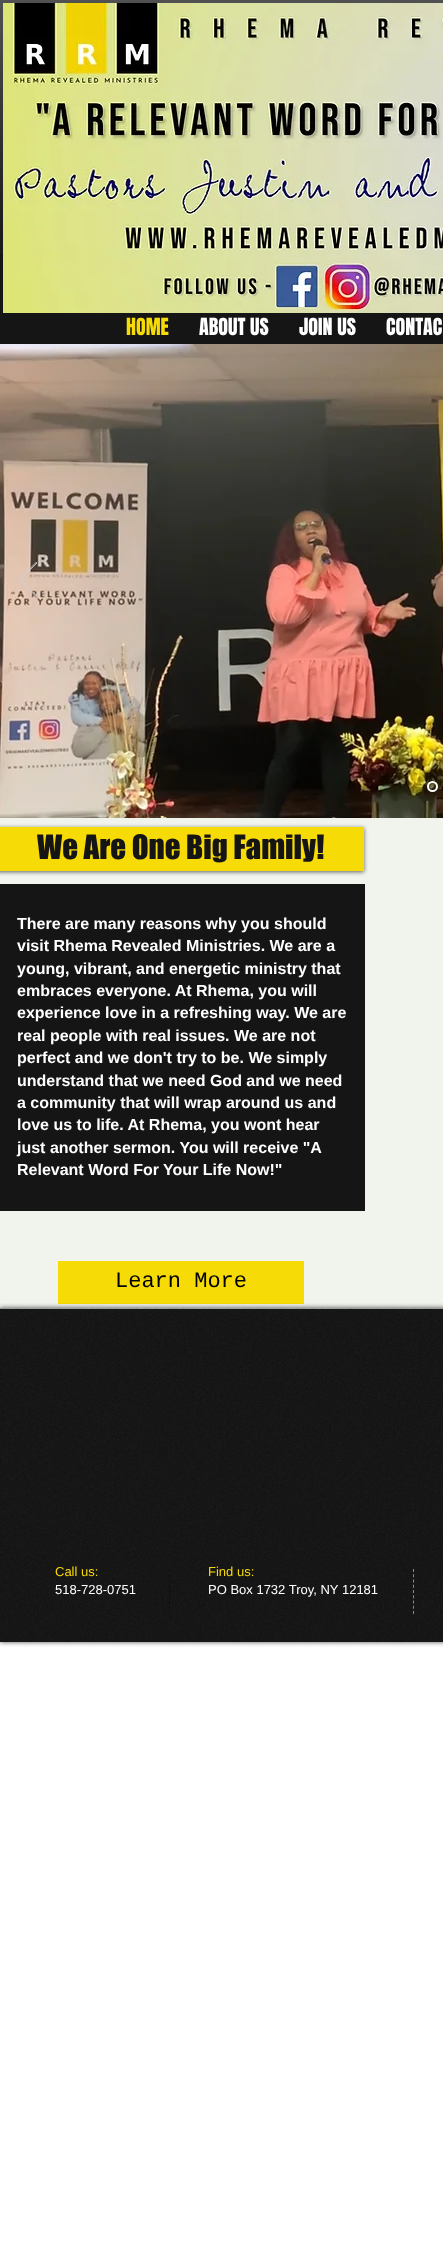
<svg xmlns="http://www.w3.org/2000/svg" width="443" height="2252">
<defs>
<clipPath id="clip1"><rect x="19" y="562" width="18" height="35"/></clipPath>
<clipPath id="clip2"><path d="M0 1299h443v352h-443zm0 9h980v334h-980z" clip-rule="evenodd"/></clipPath>
</defs>
<rect width="100%" height="100%" fill="#fff"/>
<rect width="443" height="344" fill="#161515"/>
<image x="0" y="0" width="443" height="254" href="media/1.png"/>
<image x="3" y="3" width="440" height="310" href="media/2.png"/>
<text x="126" y="335" style="font-family:Anton;font-size:20px;fill:#f7db07">HOME</text>
<text x="199" y="335" style="font-family:Anton;font-size:20px;fill:#fff">ABOUT US</text>
<text x="299" y="335" style="font-family:Anton;font-size:20px;fill:#fff">JOIN US</text>
<text x="386" y="335" style="font-family:Anton;font-size:20px;fill:#fff">CONTAC</text>
<rect y="818" width="443" height="490" fill="#f1f4ed"/>
<image x="0" y="344" width="443" height="474" href="media/3.png"/>
<g clip-path="url(#clip1)">
<path d="M36.5 597l-17.5-17.5l17.5-17.5l.5 1l-17 16.5l17 17z" fill="none" stroke="#d2cece" stroke-width="0.9"/>
</g>
<circle cx="432.5" cy="786.5" r="4.5" fill="none" stroke="#fff" stroke-width="2"/>
<rect x="-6" y="828" width="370" height="44" fill="#00000099" filter="blur(2px)"/>
<rect y="827" width="364" height="44" fill="#f7db07"/>
<text x="37" y="859" style="font-family:'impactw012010';font-size:31px;fill:#161515">We Are One Big Family!</text>
<rect y="884" width="365" height="327" fill="#161515"/>
<text x="17" y="929" style="font-family:Liberation Sans;font-size:16px;font-weight:bold;fill:#fff">There are many reasons why you should</text>
<text x="17" y="951" style="font-family:Liberation Sans;font-size:16px;font-weight:bold;fill:#fff">visit Rhema Revealed Ministries. We are a</text>
<text x="17" y="974" style="font-family:Liberation Sans;font-size:16px;font-weight:bold;fill:#fff">young, vibrant, and energetic ministry that</text>
<text x="17" y="996" style="font-family:Liberation Sans;font-size:16px;font-weight:bold;fill:#fff">embraces everyone. At Rhema, you will</text>
<text x="17" y="1018" style="font-family:Liberation Sans;font-size:16px;font-weight:bold;fill:#fff">experience love in a refreshing way. We are</text>
<text x="17" y="1041" style="font-family:Liberation Sans;font-size:16px;font-weight:bold;fill:#fff">real people with real issues. We are not</text>
<text x="17" y="1063" style="font-family:Liberation Sans;font-size:16px;font-weight:bold;fill:#fff">perfect and we don't try to be. We simply</text>
<text x="17" y="1086" style="font-family:Liberation Sans;font-size:16px;font-weight:bold;fill:#fff">understand that we need God and we need</text>
<text x="17" y="1108" style="font-family:Liberation Sans;font-size:16px;font-weight:bold;fill:#fff">a community that will wrap around us and</text>
<text x="17" y="1130" style="font-family:Liberation Sans;font-size:16px;font-weight:bold;fill:#fff">love us to life. At Rhema, you wont hear</text>
<text x="17" y="1153" style="font-family:Liberation Sans;font-size:16px;font-weight:bold;fill:#fff">just another sermon. You will receive "A</text>
<text x="17" y="1175" style="font-family:Liberation Sans;font-size:16px;font-weight:bold;fill:#fff">Relevant Word For Your Life Now!"</text>
<rect x="58" y="1261" width="246" height="43" fill="#f7db07"/>
<text x="115" y="1287" style="font-family:Liberation Mono;font-size:22px;fill:#000">Learn More</text>
<rect y="1309" width="443" height="333" fill="#161515"/>
<rect y="1308" width="443" height="1" fill="#a0a0a0"/>
<g clip-path="url(#clip2)">
<rect y="1308" width="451" height="334" fill="#000000b3" filter="blur(2.5px)"/>
</g>
<image x="0" y="1308" width="443" height="334" href="media/4.png"/>
<text x="55" y="1576" style="font-family:Liberation Sans;font-size:13px;fill:#f7db07">Call us:</text>
<text x="55" y="1594" style="font-family:Liberation Sans;font-size:13px;fill:#fff">518-728-0751</text>
<text x="208" y="1576" style="font-family:Liberation Sans;font-size:13px;fill:#f7db07">Find us:</text>
<text x="208" y="1594" style="font-family:Liberation Sans;font-size:13px;fill:#fff">PO Box 1732 Troy, NY 12181</text>
<path d="M413.5 1569v45" fill="none" stroke="#ffffff80" stroke-dasharray="3 2.25"/>
<path d="M169.5 1569v45" fill="none" stroke="#00000059" stroke-dasharray="3 2.25"/>
</svg>
